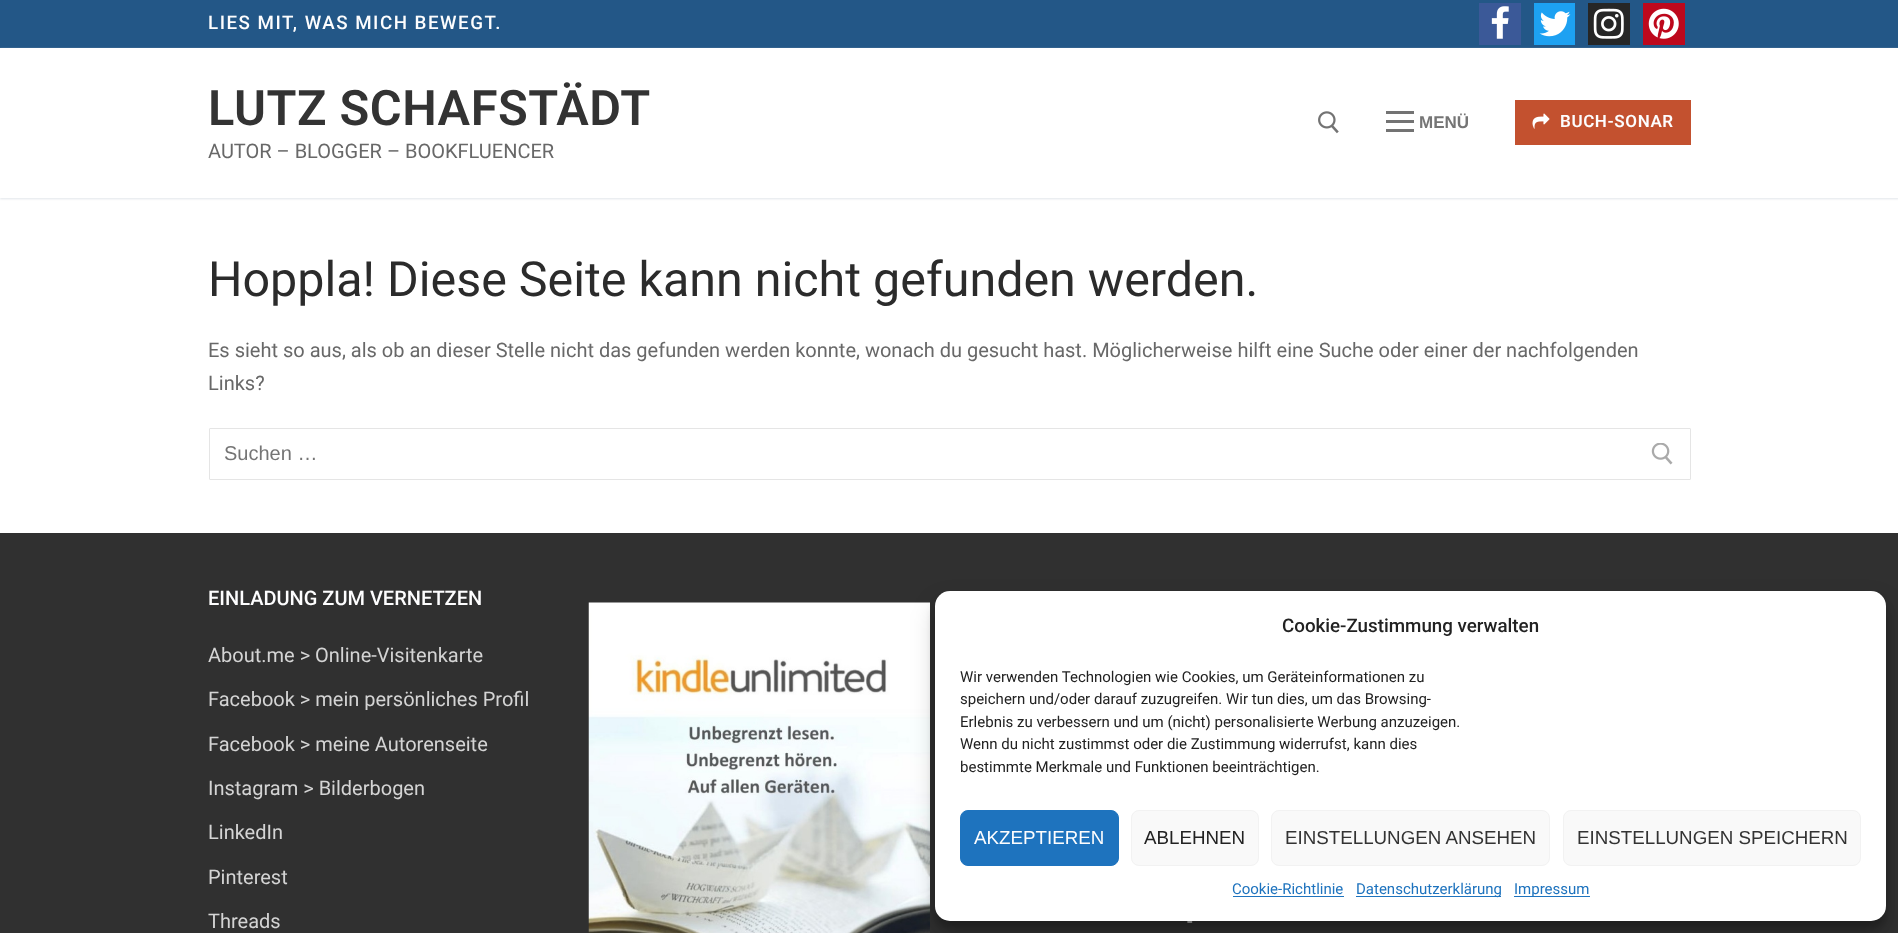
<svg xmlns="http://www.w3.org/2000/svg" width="1898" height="933">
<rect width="100%" height="100%" fill="#fff"/>
<rect width="1898" height="48" fill="#235787"/>
<text x="208" y="29" style="font-family:Roboto;font-size:18.75px;font-weight:500;letter-spacing:1.5px;fill:#fdfdfe">LIES MIT, WAS MICH BEWEGT.</text>
<rect x="1479" y="3" width="42" height="42" fill="#3b5998"/>
<image x="1491" y="6" width="18" height="33" href="media/1.png"/>
<rect x="1534" y="3" width="41" height="42" fill="#1da1f2"/>
<image x="1539" y="11" width="32" height="26" href="media/2.png"/>
<rect x="1588" y="3" width="42" height="42" fill="#262626"/>
<image x="1593" y="8" width="31" height="31" href="media/3.png"/>
<rect x="1643" y="3" width="42" height="42" fill="#bd081c"/>
<image x="1648" y="8" width="31" height="31" href="media/4.png"/>
<rect y="49" width="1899" height="150" fill="#e1e5ea" filter="blur(1px)"/>
<rect y="48" width="1898" height="150" fill="#fff"/>
<text x="208" y="125" style="font-family:Roboto;font-size:48.75px;font-weight:600;letter-spacing:0.5px;fill:#333">LUTZ SCHAFSTÄDT</text>
<text x="208" y="158" style="font-family:Roboto;font-size:20px;fill:#686868">AUTOR – BLOGGER – BOOKFLUENCER</text>
<image x="1318" y="111" width="21" height="23" href="media/5.png"/>
<rect x="1386" y="120" width="28" height="3" fill="#737373"/>
<rect x="1386" y="111" width="28" height="3" fill="#737373"/>
<rect x="1386" y="129" width="28" height="3" fill="#737373"/>
<text x="1419" y="128" style="font-family:Liberation Sans;font-size:17px;font-weight:bold;fill:#757575">MENÜ</text>
<rect x="1515" y="100" width="176" height="45" fill="#c3512f"/>
<image x="1532" y="113" width="18" height="16" href="media/6.png"/>
<text x="1560" y="127" style="font-family:Roboto;font-size:17px;font-weight:600;letter-spacing:0.6px;fill:#fdfdfe">BUCH-SONAR</text>
<text x="208" y="296" style="font-family:Roboto;font-size:48.4px;fill:#2b2b2b">Hoppla! Diese Seite kann nicht gefunden werden.</text>
<text x="208" y="357" style="font-family:Roboto;font-size:20px;fill:#686868">Es sieht so aus, als ob an dieser Stelle nicht das gefunden werden konnte, wonach du gesucht hast. Möglicherweise hilft eine Suche oder einer der nachfolgenden</text>
<text x="208" y="390" style="font-family:Roboto;font-size:20px;fill:#686868">Links?</text>
<rect x="209.5" y="428.5" width="1481" height="51" rx="0.5" fill="none" stroke="#e5e5e5"/>
<text x="224" y="460" style="font-family:Liberation Sans;font-size:20px;fill:#757575">Suchen …</text>
<image x="1651" y="443" width="22" height="22" href="media/7.png"/>
<rect y="533" width="1898" height="400" fill="#303030"/>
<text x="208" y="605" style="font-family:Roboto;font-size:20px;font-weight:500;fill:#fdfdfe">EINLADUNG ZUM VERNETZEN</text>
<text x="208" y="662" style="font-family:Roboto;font-size:20px;fill:#d4d4d4">About.me &gt; Online-Visitenkarte</text>
<text x="208" y="706" style="font-family:Roboto;font-size:20px;fill:#d4d4d4">Facebook &gt; mein persönliches Profil</text>
<text x="208" y="751" style="font-family:Roboto;font-size:20px;fill:#d4d4d4">Facebook &gt; meine Autorenseite</text>
<text x="208" y="795" style="font-family:Roboto;font-size:20px;fill:#d4d4d4">Instagram &gt; Bilderbogen</text>
<text x="208" y="839" style="font-family:Roboto;font-size:20px;fill:#d4d4d4">LinkedIn</text>
<text x="208" y="884" style="font-family:Roboto;font-size:20px;fill:#d4d4d4">Pinterest</text>
<text x="208" y="928" style="font-family:Roboto;font-size:20px;fill:#d4d4d4">Threads</text>
<image x="588" y="602" width="342" height="331" href="media/8.png"/>
<text x="1187" y="928" style="font-family:Roboto;font-size:20px;fill:#d4d4d4">-</text>
<rect x="935" y="599" width="951" height="330" rx="15" fill="#0000003b" filter="blur(4px)"/>
<rect x="935" y="604" width="951" height="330" rx="15" fill="#00000030" filter="blur(12.5px)"/>
<rect x="935" y="591" width="951" height="330" rx="15" fill="#fff"/>
<text x="1282" y="632" style="font-family:Roboto;font-size:18.75px;font-weight:500;fill:#222">Cookie-Zustimmung verwalten</text>
<text x="960" y="682" style="font-family:Roboto;font-size:15px;fill:#222">Wir verwenden Technologien wie Cookies, um Geräteinformationen zu</text>
<text x="960" y="704" style="font-family:Roboto;font-size:15px;fill:#222">speichern und/oder darauf zuzugreifen. Wir tun dies, um das Browsing-</text>
<text x="960" y="727" style="font-family:Roboto;font-size:15px;fill:#222">Erlebnis zu verbessern und um (nicht) personalisierte Werbung anzuzeigen.</text>
<text x="960" y="749" style="font-family:Roboto;font-size:15px;fill:#222">Wenn du nicht zustimmst oder die Zustimmung widerrufst, kann dies</text>
<text x="960" y="772" style="font-family:Roboto;font-size:15px;fill:#222">bestimmte Merkmale und Funktionen beeinträchtigen.</text>
<rect x="960.5" y="810.5" width="158" height="55" rx="7.5" fill="#1e73be" stroke="#1e73be"/>
<text x="974" y="844" style="font-family:Liberation Sans;font-size:18.75px;fill:#fdfdfe">AKZEPTIEREN</text>
<rect x="1131.5" y="810.5" width="127" height="55" rx="7.5" fill="#f9f9f9" stroke="#f2f2f2"/>
<text x="1144" y="844" style="font-family:Liberation Sans;font-size:18.75px;fill:#222">ABLEHNEN</text>
<rect x="1271.5" y="810.5" width="278" height="55" rx="7.5" fill="#f9f9f9" stroke="#f2f2f2"/>
<text x="1285" y="844" style="font-family:Liberation Sans;font-size:18.75px;fill:#333">EINSTELLUNGEN ANSEHEN</text>
<rect x="1563.5" y="810.5" width="297" height="55" rx="7.5" fill="#f9f9f9" stroke="#f2f2f2"/>
<text x="1577" y="844" style="font-family:Liberation Sans;font-size:18.75px;fill:#333">EINSTELLUNGEN SPEICHERN</text>
<text x="1232" y="894" style="font-family:Roboto;font-size:15px;fill:#1e73be">Cookie-Richtlinie</text>
<rect x="1233" y="896" width="111" height="1" fill="#1e73be"/>
<rect x="1356" y="896" width="145" height="1" fill="#1e73be"/>
<text x="1356" y="894" style="font-family:Roboto;font-size:15px;fill:#1e73be">Datenschutzerklärung</text>
<rect x="1514" y="896" width="76" height="1" fill="#1e73be"/>
<text x="1514" y="894" style="font-family:Roboto;font-size:15px;fill:#1e73be">Impressum</text>
</svg>
